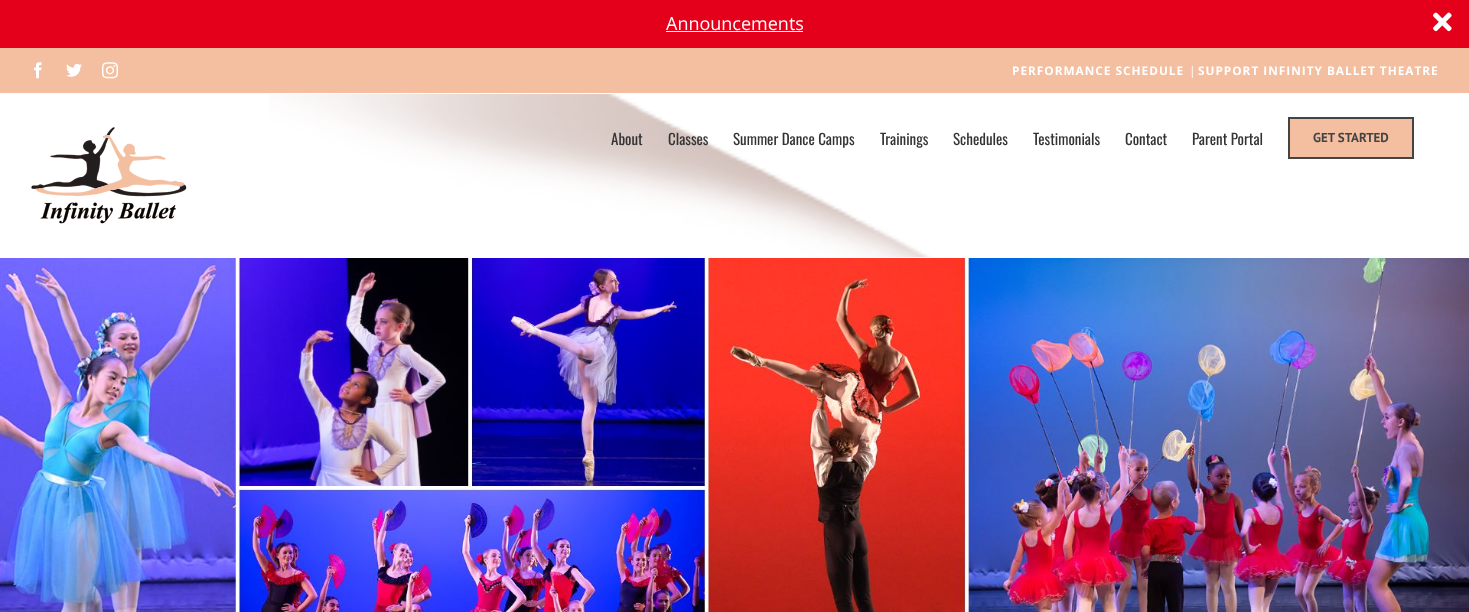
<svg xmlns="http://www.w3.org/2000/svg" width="1469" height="612">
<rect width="100%" height="100%" fill="#fff"/>
<rect width="1469" height="48" fill="#e4001b"/>
<text x="666" y="30" style="font-family:Open Sans;font-size:18px;fill:#fff">Announcements</text>
<rect x="666" y="31" width="137" height="1" fill="#fff"/>
<image x="1433" y="12" width="19" height="20" href="media/1.png"/>
<rect y="48" width="1469" height="45" fill="#f3bfa0"/>
<image x="34" y="62" width="8" height="17" href="media/2.png"/>
<image x="66" y="63" width="16" height="14" href="media/3.png"/>
<image x="102" y="62" width="16" height="17" href="media/4.png"/>
<text x="1012" y="75" style="font-family:Open Sans;font-size:11.8px;font-weight:bold;letter-spacing:1px;fill:#fff">PERFORMANCE SCHEDULE</text>
<text x="1189" y="75" style="font-family:Open Sans;font-size:12px;fill:#fff">|</text>
<text x="1198" y="75" style="font-family:Open Sans;font-size:11.8px;font-weight:bold;letter-spacing:1px;fill:#fff">SUPPORT INFINITY BALLET THEATRE</text>
<image x="269" y="94" width="664" height="163" href="media/5.png"/>
<image x="31" y="127" width="156" height="97" href="media/6.png"/>
<text x="611" y="145" style="font-family:Oswald;font-size:15px;fill:#333">About</text>
<text x="668" y="145" style="font-family:Oswald;font-size:15px;fill:#333">Classes</text>
<text x="733" y="145" style="font-family:Oswald;font-size:15px;fill:#333">Summer Dance Camps</text>
<text x="880" y="145" style="font-family:Oswald;font-size:15px;fill:#333">Trainings</text>
<text x="953" y="145" style="font-family:Oswald;font-size:15px;fill:#333">Schedules</text>
<text x="1033" y="145" style="font-family:Oswald;font-size:15px;fill:#333">Testimonials</text>
<text x="1125" y="145" style="font-family:Oswald;font-size:15px;fill:#333">Contact</text>
<text x="1192" y="145" style="font-family:Oswald;font-size:15px;fill:#333">Parent Portal</text>
<rect x="1289" y="118" width="124" height="40" fill="#f3bfa0" stroke="#444" stroke-width="2"/>
<text x="1313" y="142" style="font-family:PT Sans;font-size:13px;font-weight:bold;fill:#444">GET STARTED</text>
<image x="0" y="258" width="1469" height="354" href="media/7.png"/>
</svg>
